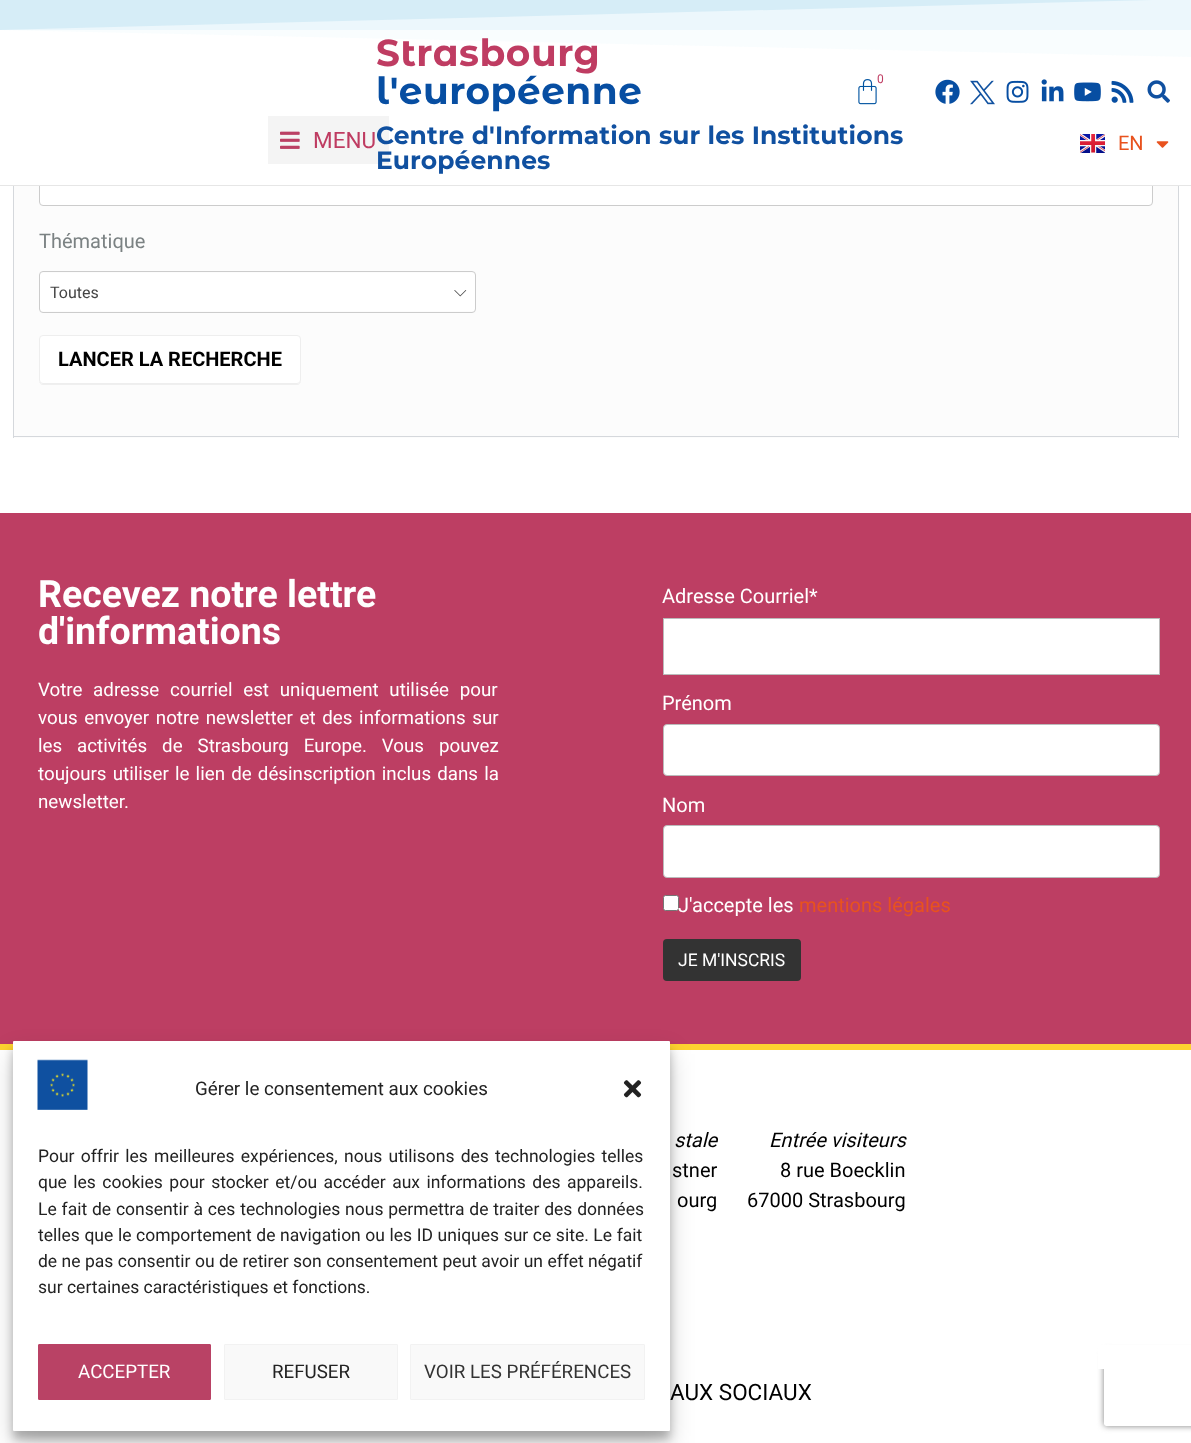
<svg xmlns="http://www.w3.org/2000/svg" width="1191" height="1443">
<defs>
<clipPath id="clip1"><path d="M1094 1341h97v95h-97zm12.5 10h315c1.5 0 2.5 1 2.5 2.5v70c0 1.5-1 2.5-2.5 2.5h-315c-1.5 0-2.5-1-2.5-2.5v-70c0-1.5 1-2.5 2.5-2.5z" clip-rule="evenodd"/></clipPath>
</defs>
<rect width="100%" height="100%" fill="#fff"/>
<rect x="14" y="186" width="1164" height="252" fill="#fcfcfc"/>
<rect x="39.5" y="160.5" width="1113" height="45" rx="3.5" fill="#fff" stroke="#ccc"/>
<rect y="185" width="1191" height="1" fill="#e6e6e6"/>
<rect x="39" y="160" width="1114" height="25" fill="#fff"/>
<rect width="1191" height="30" fill="#f2f9fd"/>
<path d="M1191-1h-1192v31z" fill="#dbeff8"/>
<path d="M-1-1h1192v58l-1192-27z" fill="#6ec1e40a"/>
<text x="376" y="66" style="font-family:Montserrat Alternates;font-size:37.5px;font-weight:bold;letter-spacing:0.5px;fill:#bf3c62">Strasbourg</text>
<text x="376" y="104" style="font-family:Montserrat Alternates;font-size:37.5px;font-weight:bold;letter-spacing:0.5px;fill:#074ea2">l'européenne</text>
<image x="858" y="79" width="19" height="26" href="media/1.png"/>
<text x="877" y="83" style="font-family:Roboto;font-size:12px;fill:#bf3c62">0</text>
<image x="935" y="79" width="25" height="25" href="media/2.png"/>
<image x="970" y="80" width="25" height="25" href="media/3.png"/>
<image x="1006" y="80" width="23" height="23" href="media/4.png"/>
<image x="1041" y="79" width="23" height="23" href="media/5.png"/>
<image x="1074" y="82" width="27" height="20" href="media/6.png"/>
<image x="1111" y="80" width="23" height="23" href="media/7.png"/>
<image x="1147" y="80" width="23" height="23" href="media/8.png"/>
<rect x="268" y="116" width="121" height="48" fill="#f4f4f4"/>
<image x="280" y="131" width="20" height="18" href="media/9.png"/>
<text x="313" y="148" style="font-family:Roboto;font-size:22.5px;fill:#bf3c62">MENU</text>
<text x="376" y="144" style="font-family:Montserrat;font-size:25px;font-weight:bold;letter-spacing:0.1px;fill:#1050a0">Centre d'Information sur les Institutions</text>
<text x="376" y="169" style="font-family:Montserrat;font-size:25px;font-weight:bold;letter-spacing:0.1px;fill:#1050a0">Européennes</text>
<image x="1080" y="134" width="25" height="19" href="media/10.png"/>
<text x="1118" y="150" style="font-family:Roboto;font-size:20px;fill:#e8521e">EN</text>
<image x="1156" y="141" width="13" height="7" href="media/11.png"/>
<rect x="1178" y="186" width="1" height="252" fill="#d5d8dc"/>
<rect x="13" y="436" width="1166" height="1" fill="#d5d8dc"/>
<rect x="13" y="186" width="1" height="252" fill="#d5d8dc"/>
<text x="39" y="248" style="font-family:Roboto;font-size:20px;fill:#7b8283">Thématique</text>
<rect x="40" y="273" width="435" height="38" rx="2.5" fill="#fff"/>
<rect x="39.5" y="271.5" width="436" height="41" rx="3.5" fill="none" stroke="#ccc"/>
<text x="50" y="298" style="font-family:Roboto;font-size:16px;fill:#444">Toutes</text>
<image x="454" y="290" width="13" height="7" href="media/12.png"/>
<path d="M39 381c0 2 2 4 4 4h254c2 0 4-2 4-4c-1 2-2 3-3 3h-256c-1 0-2-1-3-3z" fill="#efefef"/>
<rect x="39.5" y="335.5" width="261" height="48" rx="3.5" fill="#fff" stroke="#eee"/>
<text x="58" y="366" style="font-family:Roboto;font-size:20px;font-weight:bold;fill:#000">LANCER LA RECHERCHE</text>
<rect y="513" width="1191" height="531" fill="#bd3e63"/>
<text x="38" y="607" style="font-family:Roboto;font-size:37.5px;font-weight:bold;fill:#fff">Recevez notre lettre</text>
<text x="38" y="644" style="font-family:Roboto;font-size:37.5px;font-weight:bold;fill:#fff">d'informations</text>
<text x="38" y="696" word-spacing="6" style="font-family:Roboto;font-size:18.75px;fill:#fff">Votre adresse courriel est uniquement utilisée pour</text>
<text x="38" y="724" word-spacing="2" style="font-family:Roboto;font-size:18.75px;fill:#fff">vous envoyer notre newsletter et des informations sur</text>
<text x="38" y="752" word-spacing="10.25" style="font-family:Roboto;font-size:18.75px;fill:#fff">les activités de Strasbourg Europe. Vous pouvez</text>
<text x="38" y="780" word-spacing="1.5" style="font-family:Roboto;font-size:18.75px;fill:#fff">toujours utiliser le lien de désinscription inclus dans la</text>
<text x="38" y="808" style="font-family:Roboto;font-size:18.75px;fill:#fff">newsletter.</text>
<text x="662" y="603" style="font-family:Roboto;font-size:20px;fill:#fff">Adresse Courriel*</text>
<rect x="663.5" y="618.5" width="496" height="56" fill="#fff" stroke="#bbb"/>
<text x="662" y="710" style="font-family:Roboto;font-size:20px;fill:#fff">Prénom</text>
<rect x="663.5" y="724.5" width="496" height="51" rx="3.5" fill="#fff" stroke="#bbb"/>
<text x="662" y="812" style="font-family:Roboto;font-size:20px;fill:#fff">Nom</text>
<rect x="663.5" y="825.5" width="496" height="52" rx="3.5" fill="#fff" stroke="#bbb"/>
<rect x="663.5" y="895.5" width="15" height="15" rx="2" fill="#fff" stroke="#767676"/>
<text x="678" y="912" style="font-family:Roboto;font-size:20px;fill:#fff">J'accepte les</text>
<text x="799" y="912" style="font-family:Roboto;font-size:20px;fill:#e8521e">mentions légales</text>
<rect x="663" y="939" width="138" height="42" rx="4" fill="#333"/>
<text x="678" y="966" style="font-family:Roboto;font-size:17.5px;fill:#fff">JE M'INSCRIS</text>
<g clip-path="url(#clip1)">
<rect x="1104" y="1351" width="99" height="75" rx="2.5" fill="#808080" filter="blur(3px)"/>
</g>
<rect x="1098" y="1345" width="93" height="24" fill="#fff"/>
<rect y="1044" width="1191" height="6" fill="#fed330"/>
<text x="674" y="1147" style="font-family:Roboto;font-size:20px;font-style:italic;fill:#000">stale</text>
<text x="672" y="1177" style="font-family:Roboto;font-size:20px;fill:#000">stner</text>
<text x="677" y="1207" style="font-family:Roboto;font-size:20px;fill:#000">ourg</text>
<text x="769" y="1147" style="font-family:Roboto;font-size:20px;font-style:italic;fill:#000">Entrée visiteurs</text>
<text x="780" y="1177" style="font-family:Roboto;font-size:20px;fill:#000">8 rue Boecklin</text>
<text x="747" y="1207" style="font-family:Roboto;font-size:20px;fill:#000">67000 Strasbourg</text>
<text x="670" y="1400" style="font-family:Roboto;font-size:22.5px;fill:#000">AUX SOCIAUX</text>
<rect x="13" y="1049" width="657" height="390" rx="1" fill="#0000003b" filter="blur(4px)"/>
<rect x="13" y="1054" width="657" height="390" rx="1" fill="#00000030" filter="blur(12.5px)"/>
<rect x="13" y="1041" width="657" height="390" rx="1" fill="#fff"/>
<image x="37" y="1059" width="51" height="51" href="media/13.png"/>
<text x="195" y="1095" style="font-family:Roboto;font-size:18.75px;fill:#222">Gérer le consentement aux cookies</text>
<image x="623" y="1080" width="19" height="18" href="media/14.png"/>
<text x="38" y="1162" word-spacing="1.9" style="font-family:Roboto;font-size:17.5px;fill:#222">Pour offrir les meilleures expériences, nous utilisons des technologies telles</text>
<text x="38" y="1188" word-spacing="2.1" style="font-family:Roboto;font-size:17.5px;fill:#222">que les cookies pour stocker et/ou accéder aux informations des appareils.</text>
<text x="38" y="1215" word-spacing="0.5" style="font-family:Roboto;font-size:17.5px;fill:#222">Le fait de consentir à ces technologies nous permettra de traiter des données</text>
<text x="38" y="1241" word-spacing="0.25" style="font-family:Roboto;font-size:17.5px;fill:#222">telles que le comportement de navigation ou les ID uniques sur ce site. Le fait</text>
<text x="38" y="1267" word-spacing="0.1" style="font-family:Roboto;font-size:17.5px;fill:#222">de ne pas consentir ou de retirer son consentement peut avoir un effet négatif</text>
<text x="38" y="1293" style="font-family:Roboto;font-size:17.5px;fill:#222">sur certaines caractéristiques et fonctions.</text>
<rect x="38.5" y="1344.5" width="172" height="55" rx="0.5" fill="#b94265" stroke="#b94265"/>
<text x="78" y="1378" style="font-family:Roboto;font-size:18.75px;fill:#fff">ACCEPTER</text>
<rect x="224.5" y="1344.5" width="173" height="55" rx="0.5" fill="#f9f9f9" stroke="#f2f2f2"/>
<text x="272" y="1378" style="font-family:Roboto;font-size:18.75px;fill:#222">REFUSER</text>
<rect x="410.5" y="1344.5" width="234" height="55" rx="0.5" fill="#f9f9f9" stroke="#f2f2f2"/>
<text x="424" y="1378" style="font-family:Roboto;font-size:18.75px;fill:#333">VOIR LES PRÉFÉRENCES</text>
</svg>
